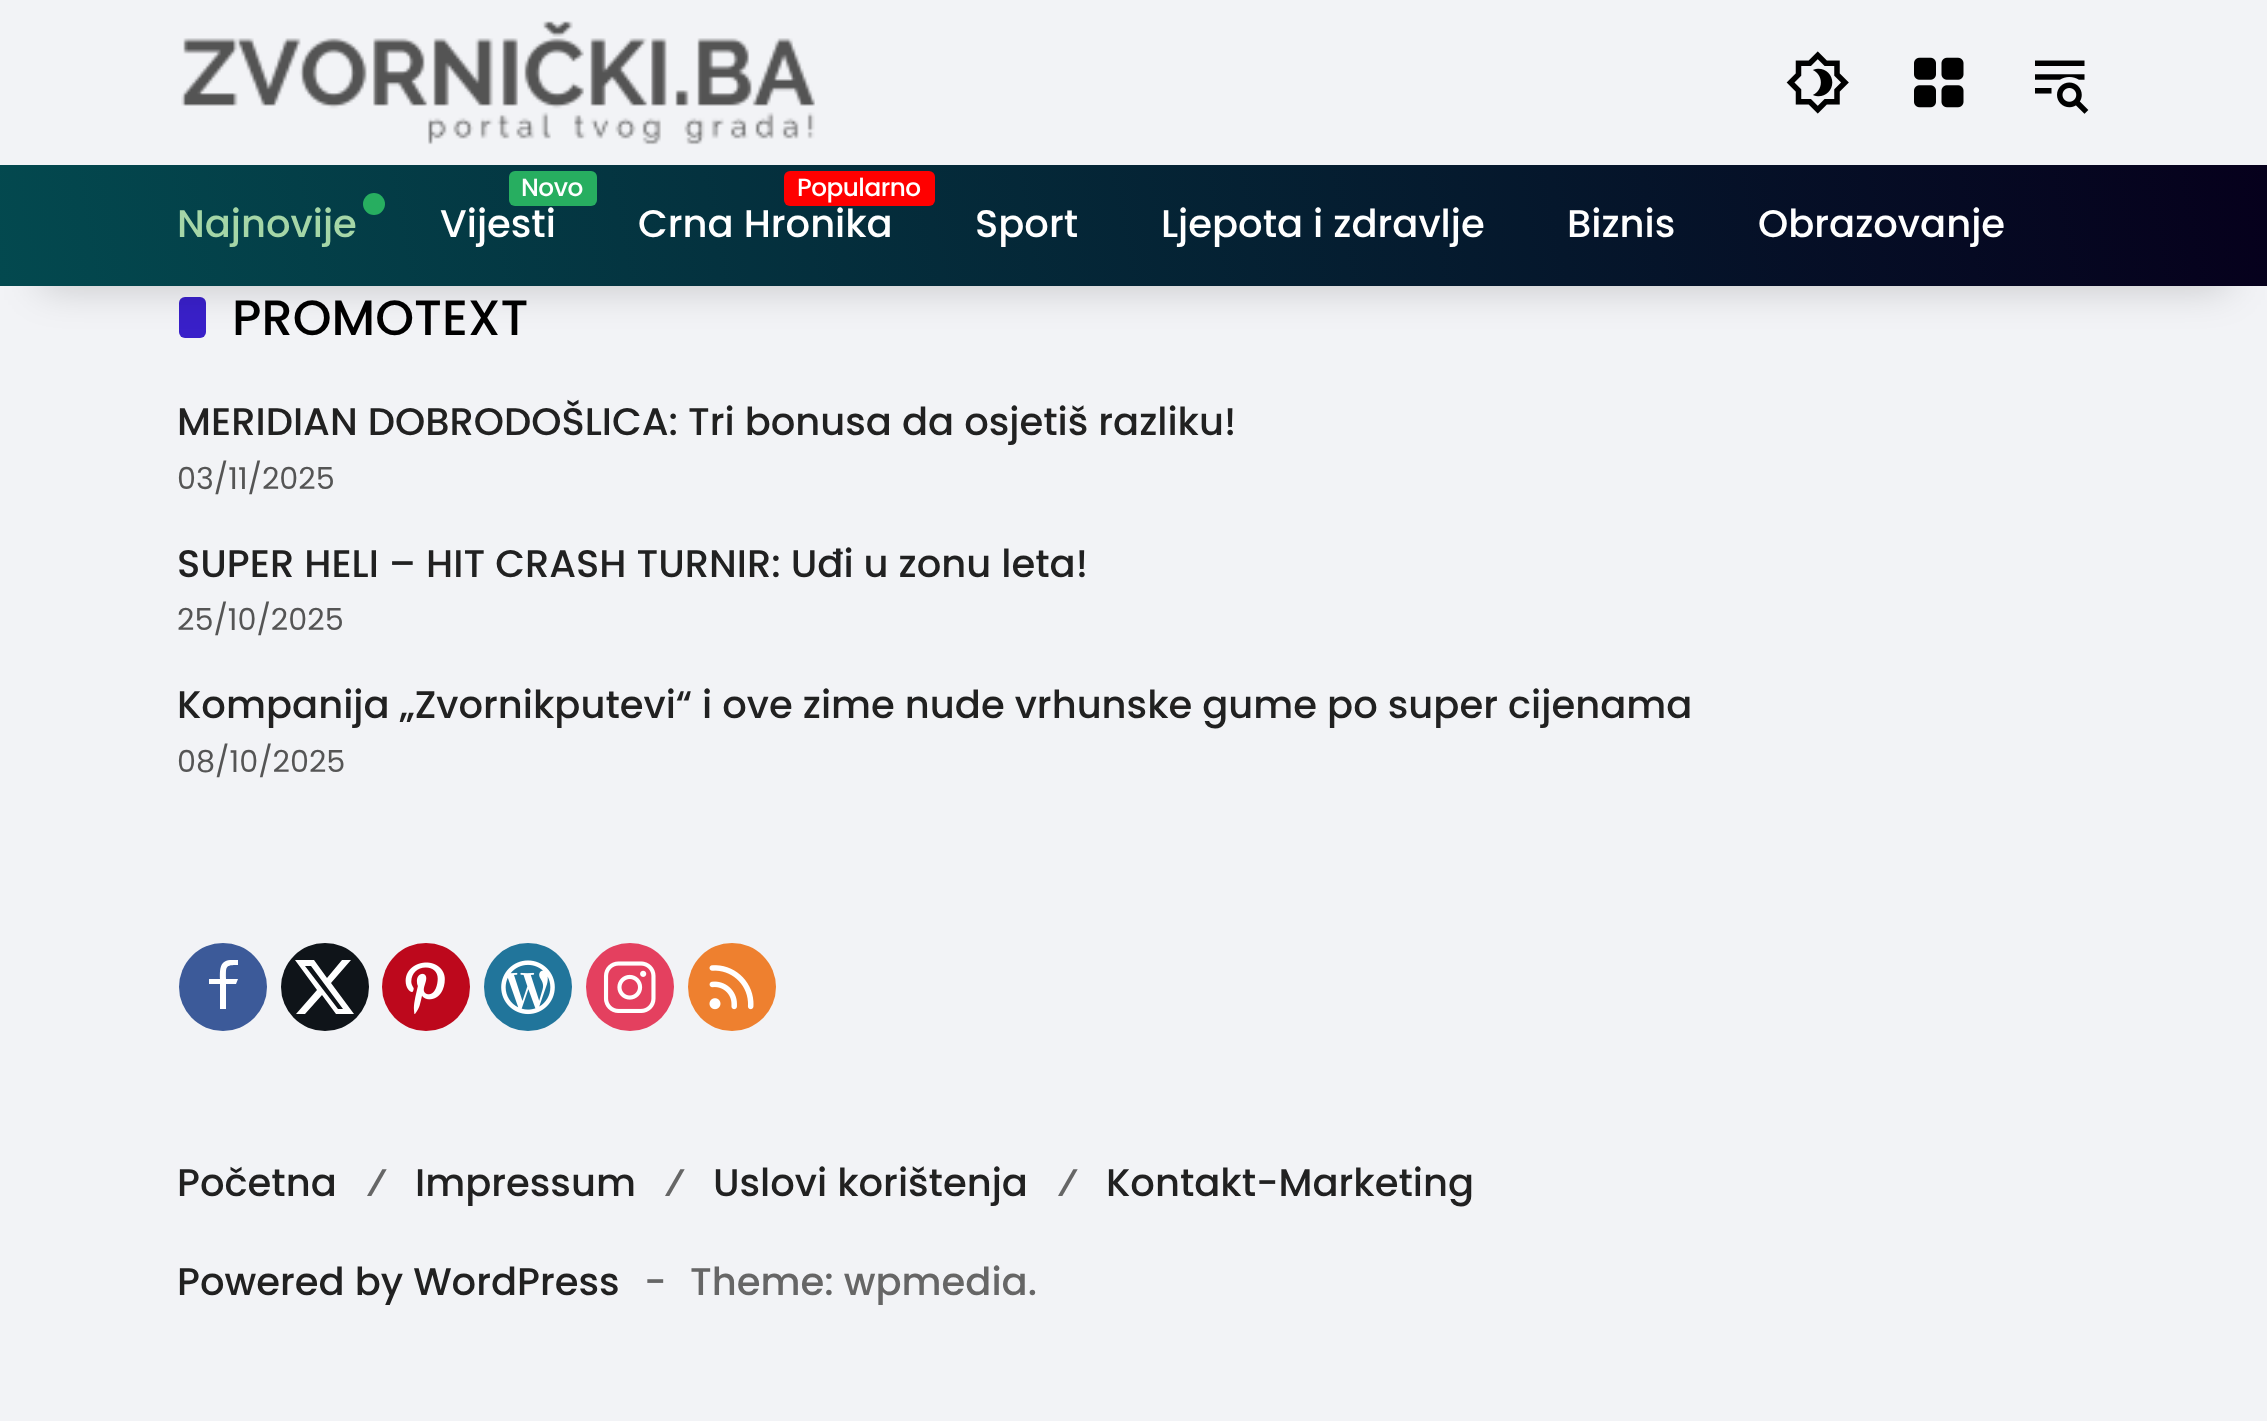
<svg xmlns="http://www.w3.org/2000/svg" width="2267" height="1421">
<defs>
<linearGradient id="g1" gradientUnits="userSpaceOnUse" x1="24" y1="421" x2="2245" y2="30"><stop offset="0" stop-color="#03494f"/><stop offset="1" stop-color="#06001c"/></linearGradient>
</defs>
<rect width="100%" height="100%" fill="#f2f3f6"/>
<image x="181" y="21" width="634" height="124" href="media/1.png"/>
<image x="1786" y="51" width="63" height="63" href="media/2.png"/>
<image x="1914" y="57" width="50" height="51" href="media/3.png"/>
<image x="2035" y="60" width="54" height="54" href="media/4.png"/>
<rect x="179" y="297" width="27" height="41" rx="6" fill="#3920c9"/>
<rect x="41" y="248" width="2187" height="38" fill="#00000033" filter="blur(20.5px)"/>
<rect y="165" width="2267" height="121" fill="url(#g1)"/>
<circle cx="374" cy="204" r="11" fill="#27ae60"/>
<text x="177" y="237" style="font-family:Poppins;font-size:38.5px;font-weight:500;fill:#a5d6a7">Najnovije</text>
<rect x="509" y="171" width="88" height="35" rx="6" fill="#27ae60"/>
<text x="521" y="196" style="font-family:Poppins;font-size:24.75px;font-weight:500;letter-spacing:-0.5px;fill:#fff">Novo</text>
<text x="440" y="237" style="font-family:Poppins;font-size:38.5px;font-weight:500;fill:#fff">Vijesti</text>
<rect x="784" y="171" width="151" height="35" rx="6" fill="#f00"/>
<text x="797" y="196" style="font-family:Poppins;font-size:24.75px;font-weight:500;letter-spacing:-0.5px;fill:#fff">Popularno</text>
<text x="638" y="237" style="font-family:Poppins;font-size:38.5px;font-weight:500;fill:#fff">Crna Hronika</text>
<text x="975" y="237" style="font-family:Poppins;font-size:38.5px;font-weight:500;fill:#fff">Sport</text>
<text x="1161" y="237" style="font-family:Poppins;font-size:38.5px;font-weight:500;fill:#fff">Ljepota i zdravlje</text>
<text x="1567" y="237" style="font-family:Poppins;font-size:38.5px;font-weight:500;fill:#fff">Biznis</text>
<text x="1758" y="237" style="font-family:Poppins;font-size:38.5px;font-weight:500;fill:#fff">Obrazovanje</text>
<text x="232" y="335" style="font-family:Poppins;font-size:49.5px;font-weight:500;fill:#000">PROMOTEXT</text>
<text x="177" y="435" style="font-family:Poppins;font-size:38.5px;font-weight:500;fill:#212121">MERIDIAN DOBRODOŠLICA: Tri bonusa da osjetiš razliku!</text>
<text x="177" y="489" style="font-family:Poppins;font-size:30.25px;fill:#555">03/11/2025</text>
<text x="177" y="577" style="font-family:Poppins;font-size:38.5px;font-weight:500;fill:#212121">SUPER HELI – HIT CRASH TURNIR: Uđi u zonu leta!</text>
<text x="177" y="630" style="font-family:Poppins;font-size:30.25px;fill:#555">25/10/2025</text>
<text x="177" y="718" style="font-family:Poppins;font-size:38.5px;font-weight:500;fill:#212121">Kompanija „Zvornikputevi“ i ove zime nude vrhunske gume po super cijenama</text>
<text x="177" y="772" style="font-family:Poppins;font-size:30.25px;fill:#555">08/10/2025</text>
<circle cx="223" cy="987" r="44" fill="#3c5a99"/>
<path d="M226 979h12l-2 5h-10v25h-6v-25h-11v-5h11c0-8-1-18 10-19h8v5c-13 0-12 1-12 14z" fill="#fff"/>
<circle cx="325" cy="987" r="44" fill="#0f1419"/>
<path d="M342 960h9l-20 23l23 31h-18l-14-19l-17 19h-9l21-24l-22-30h19l13 18zm-4 49h5l-32-43h-6z" fill="#fff"/>
<circle cx="426" cy="987" r="44" fill="#bd081c"/>
<image x="405" y="962" width="40" height="52" href="media/5.png"/>
<circle cx="528" cy="987" r="44" fill="#21759b"/>
<image x="501" y="960" width="54" height="55" href="media/6.png"/>
<circle cx="630" cy="987" r="44" fill="#e4405f"/>
<image x="603" y="961" width="53" height="52" href="media/7.png"/>
<circle cx="732" cy="987" r="44" fill="#ee802f"/>
<image x="709" y="965" width="45" height="45" href="media/8.png"/>
<text x="177" y="1196" style="font-family:Poppins;font-size:38.5px;font-weight:500;fill:#212121">Početna</text>
<text x="365" y="1196" style="font-family:Poppins;font-size:38.5px;font-weight:500;fill:#666">⁄</text>
<text x="415" y="1196" style="font-family:Poppins;font-size:38.5px;font-weight:500;fill:#212121">Impressum</text>
<text x="663" y="1196" style="font-family:Poppins;font-size:38.5px;font-weight:500;fill:#666">⁄</text>
<text x="713" y="1196" style="font-family:Poppins;font-size:38.5px;font-weight:500;fill:#212121">Uslovi korištenja</text>
<text x="1056" y="1196" style="font-family:Poppins;font-size:38.5px;font-weight:500;fill:#666">⁄</text>
<text x="1106" y="1196" style="font-family:Poppins;font-size:38.5px;font-weight:500;fill:#212121">Kontakt-Marketing</text>
<text x="177" y="1295" style="font-family:Poppins;font-size:38.5px;font-weight:500;fill:#212121">Powered by WordPress</text>
<text x="644" y="1295" style="font-family:Poppins;font-size:38.5px;font-weight:500;fill:#666">-</text>
<text x="690" y="1295" style="font-family:Poppins;font-size:38.5px;font-weight:500;fill:#666">Theme: wpmedia.</text>
</svg>
